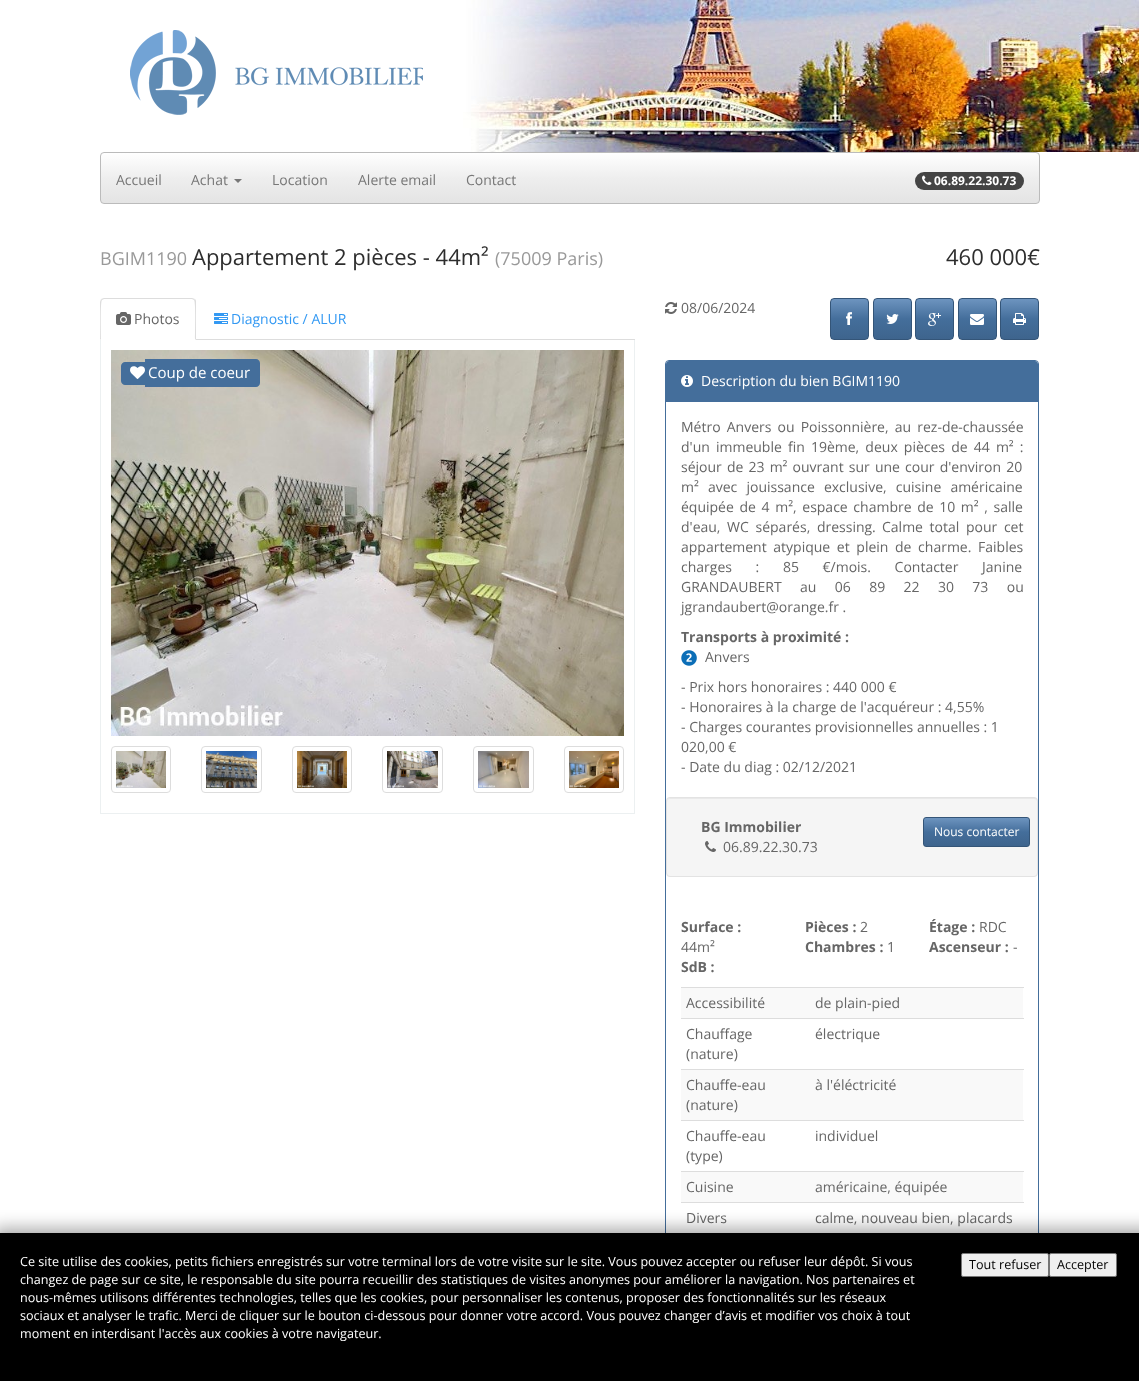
<svg xmlns="http://www.w3.org/2000/svg" width="1139" height="1381">
<defs>
<clipPath id="clip1"><rect x="100" y="152" width="940" height="52" rx="4"/></clipPath>
<linearGradient id="g1" gradientUnits="userSpaceOnUse" x1="570" y1="153" x2="570" y2="203"><stop offset="0" stop-color="#fff"/><stop offset="0.5" stop-color="#eee"/><stop offset="1" stop-color="#e4e4e4"/></linearGradient>
<clipPath id="clip2"><rect x="830" y="298" width="39" height="42" rx="4"/></clipPath>
<linearGradient id="g2" gradientUnits="userSpaceOnUse" x1="850" y1="299" x2="850" y2="339"><stop offset="0" stop-color="#6d94bf"/><stop offset="0.5" stop-color="#446e9b"/><stop offset="1" stop-color="#3e648d"/></linearGradient>
<clipPath id="clip3"><rect x="873" y="298" width="39" height="42" rx="4"/></clipPath>
<linearGradient id="g3" gradientUnits="userSpaceOnUse" x1="893" y1="299" x2="893" y2="339"><stop offset="0" stop-color="#6d94bf"/><stop offset="0.5" stop-color="#446e9b"/><stop offset="1" stop-color="#3e648d"/></linearGradient>
<clipPath id="clip4"><rect x="915" y="298" width="39" height="42" rx="4"/></clipPath>
<linearGradient id="g4" gradientUnits="userSpaceOnUse" x1="935" y1="299" x2="935" y2="339"><stop offset="0" stop-color="#6d94bf"/><stop offset="0.5" stop-color="#446e9b"/><stop offset="1" stop-color="#3e648d"/></linearGradient>
<clipPath id="clip5"><rect x="958" y="298" width="39" height="42" rx="4"/></clipPath>
<linearGradient id="g5" gradientUnits="userSpaceOnUse" x1="978" y1="299" x2="978" y2="339"><stop offset="0" stop-color="#6d94bf"/><stop offset="0.5" stop-color="#446e9b"/><stop offset="1" stop-color="#3e648d"/></linearGradient>
<clipPath id="clip6"><rect x="1000" y="298" width="39" height="42" rx="4"/></clipPath>
<linearGradient id="g6" gradientUnits="userSpaceOnUse" x1="1020" y1="299" x2="1020" y2="339"><stop offset="0" stop-color="#6d94bf"/><stop offset="0.5" stop-color="#446e9b"/><stop offset="1" stop-color="#3e648d"/></linearGradient>
<linearGradient id="g7" gradientUnits="userSpaceOnUse" x1="977" y1="818" x2="977" y2="846"><stop offset="0" stop-color="#6d94bf"/><stop offset="0.5" stop-color="#446e9b"/><stop offset="1" stop-color="#3e648d"/></linearGradient>
</defs>
<rect width="100%" height="100%" fill="#fff"/>
<image x="130" y="30" width="293" height="85" href="media/1.png"/>
<image x="423" y="0" width="716" height="152" href="media/2.png"/>
<g clip-path="url(#clip1)">
<rect x="101" y="153" width="938" height="50" fill="url(#g1)"/>
</g>
<rect x="100.5" y="152.5" width="939" height="51" rx="3.5" fill="none" stroke="#bbb"/>
<text x="116" y="185" style="font-family:Open Sans;font-size:14px;fill:#777">Accueil</text>
<text x="191" y="185" style="font-family:Open Sans;font-size:14px;fill:#777">Achat</text>
<path d="M234 179h8l-4 4z" fill="#777"/>
<text x="272" y="185" style="font-family:Open Sans;font-size:14px;fill:#777">Location</text>
<text x="358" y="185" style="font-family:Open Sans;font-size:14px;fill:#777">Alerte email</text>
<text x="466" y="185" style="font-family:Open Sans;font-size:14px;fill:#777">Contact</text>
<rect x="915" y="172" width="109" height="18" rx="9" fill="#444"/>
<image x="922" y="175" width="10" height="10" href="media/3.png"/>
<text x="934" y="185" style="font-family:Open Sans;font-size:12px;font-weight:bold;fill:#fff">06.89.22.30.73</text>
<text x="100" y="265" style="font-family:Open Sans;font-size:18px;fill:#999">BGIM1190</text>
<text x="192" y="265" style="font-family:Open Sans;font-size:22px;fill:#2d2d2d">Appartement 2 pièces - 44m²</text>
<text x="495" y="265" style="font-family:Open Sans;font-size:18px;fill:#999">(75009 Paris)</text>
<text x="946" y="265" style="font-family:Open Sans;font-size:22px;fill:#2d2d2d">460 000€</text>
<rect x="196" y="339" width="439" height="1" fill="#ddd"/>
<path d="M104 298l-3 1l1 1l2-1h88l2 1l1-1l-3-1z" fill="#ddd"/>
<path d="M196 340v-38c0-1 0-2-1-3l-1 1c2 2 1 34 1 39z" fill="#ddd"/>
<path d="M100 340l1-1c0-5-1-37 1-39l-1-1l-1 3z" fill="#ddd"/>
<image x="116" y="312" width="15" height="13" href="media/4.png"/>
<text x="134" y="324" style="font-family:Open Sans;font-size:14px;fill:#666">Photos</text>
<image x="214" y="313" width="14" height="11" href="media/5.png"/>
<text x="231" y="324" style="font-family:Open Sans;font-size:14px;fill:#3399f3">Diagnostic / ALUR</text>
<rect x="634" y="340" width="1" height="474" fill="#ecf0f1"/>
<rect x="100" y="813" width="535" height="1" fill="#ecf0f1"/>
<rect x="100" y="340" width="1" height="474" fill="#ecf0f1"/>
<image x="111" y="350" width="513" height="386" href="media/6.png"/>
<path d="M125 362h20v23h-20c-2 0-4-2-4-4v-15c0-2 2-4 4-4z" fill="#446e9b"/>
<path d="M145 359h111c2 0 4 2 4 4v20c0 2-2 4-4 4h-111z" fill="#446e9b"/>
<image x="130" y="366" width="15" height="13" href="media/7.png"/>
<text x="148" y="378" style="font-family:Open Sans;font-size:15px;fill:#fff">Coup de coeur</text>
<rect x="111.5" y="746.5" width="59" height="46" rx="3.5" fill="none" stroke="#ddd"/>
<image x="116" y="751" width="50" height="37" href="media/8.png"/>
<rect x="201.5" y="746.5" width="60" height="46" rx="3.5" fill="none" stroke="#ddd"/>
<image x="206" y="751" width="51" height="37" href="media/9.png"/>
<rect x="292.5" y="746.5" width="59" height="46" rx="3.5" fill="none" stroke="#ddd"/>
<image x="297" y="751" width="50" height="37" href="media/10.png"/>
<rect x="382.5" y="746.5" width="60" height="46" rx="3.5" fill="none" stroke="#ddd"/>
<image x="387" y="751" width="51" height="37" href="media/11.png"/>
<rect x="473.5" y="746.5" width="60" height="46" rx="3.5" fill="none" stroke="#ddd"/>
<image x="478" y="751" width="51" height="37" href="media/12.png"/>
<rect x="564.5" y="746.5" width="59" height="46" rx="3.5" fill="none" stroke="#ddd"/>
<image x="569" y="751" width="50" height="37" href="media/13.png"/>
<image x="665" y="302" width="12" height="12" href="media/14.png"/>
<text x="681" y="313" style="font-family:Open Sans;font-size:14px;fill:#666">08/06/2024</text>
<g clip-path="url(#clip2)">
<rect x="831" y="299" width="37" height="40" fill="url(#g2)"/>
</g>
<rect x="830.5" y="298.5" width="38" height="41" rx="3.5" fill="none" stroke="#345578"/>
<image x="846" y="312" width="6" height="13" href="media/15.png"/>
<g clip-path="url(#clip3)">
<rect x="874" y="299" width="37" height="40" fill="url(#g3)"/>
</g>
<rect x="873.5" y="298.5" width="38" height="41" rx="3.5" fill="none" stroke="#345578"/>
<image x="886" y="314" width="13" height="10" href="media/16.png"/>
<g clip-path="url(#clip4)">
<rect x="916" y="299" width="37" height="40" fill="url(#g4)"/>
</g>
<rect x="915.5" y="298.5" width="38" height="41" rx="3.5" fill="none" stroke="#345578"/>
<image x="928" y="313" width="13" height="13" href="media/17.png"/>
<g clip-path="url(#clip5)">
<rect x="959" y="299" width="37" height="40" fill="url(#g5)"/>
</g>
<rect x="958.5" y="298.5" width="38" height="41" rx="3.5" fill="none" stroke="#345578"/>
<image x="970" y="314" width="14" height="11" href="media/18.png"/>
<g clip-path="url(#clip6)">
<rect x="1001" y="299" width="37" height="40" fill="url(#g6)"/>
</g>
<rect x="1000.5" y="298.5" width="38" height="41" rx="3.5" fill="none" stroke="#345578"/>
<image x="1013" y="313" width="13" height="12" href="media/19.png"/>
<rect x="665.5" y="360.5" width="373" height="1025" rx="3.5" fill="none" stroke="#446e9b"/>
<path d="M669 361h366c1.5 0 3 1.5 3 3v38h-372v-38c0-1.5 1.5-3 3-3z" fill="#446e9b"/>
<image x="681" y="375" width="12" height="12" href="media/20.png"/>
<text x="701" y="386" style="font-family:Open Sans;font-size:14px;fill:#fff">Description du bien BGIM1190</text>
<text x="681" y="432" word-spacing="2.5" style="font-family:Open Sans;font-size:14px;fill:#666">Métro Anvers ou Poissonnière, au rez-de-chaussée</text>
<text x="681" y="452" word-spacing="2.5" style="font-family:Open Sans;font-size:14px;fill:#666">d'un immeuble fin 19ème, deux pièces de 44 m² :</text>
<text x="681" y="472" word-spacing="1.5" style="font-family:Open Sans;font-size:14px;fill:#666">séjour de 23 m² ouvrant sur une cour d'environ 20</text>
<text x="681" y="492" word-spacing="5.5" style="font-family:Open Sans;font-size:14px;fill:#666">m² avec jouissance exclusive, cuisine américaine</text>
<text x="681" y="512" word-spacing="2" style="font-family:Open Sans;font-size:14px;fill:#666">équipée de 4 m², espace chambre de 10 m² , salle</text>
<text x="681" y="532" word-spacing="3" style="font-family:Open Sans;font-size:14px;fill:#666">d'eau, WC séparés, dressing.</text>
<text x="882" y="532" word-spacing="3" style="font-family:Open Sans;font-size:14px;fill:#666">Calme total pour cet</text>
<text x="681" y="552" word-spacing="3" style="font-family:Open Sans;font-size:14px;fill:#666">appartement atypique et plein de charme. Faibles</text>
<text x="681" y="572" word-spacing="20" style="font-family:Open Sans;font-size:14px;fill:#666">charges : 85 €/mois. Contacter Janine</text>
<text x="681" y="592" word-spacing="14.75" style="font-family:Open Sans;font-size:14px;fill:#666">GRANDAUBERT au 06 89 22 30 73 ou</text>
<text x="681" y="612" style="font-family:Open Sans;font-size:14px;fill:#666">jgrandaubert@orange.fr .</text>
<text x="681" y="642" style="font-family:Open Sans;font-size:14px;font-weight:bold;fill:#666">Transports à proximité :</text>
<image x="681" y="650" width="16" height="16" href="media/21.png"/>
<text x="705" y="662" style="font-family:Open Sans;font-size:14px;fill:#666">Anvers</text>
<text x="681" y="692" style="font-family:Open Sans;font-size:14px;fill:#666">- Prix hors honoraires : 440 000 €</text>
<text x="681" y="712" style="font-family:Open Sans;font-size:14px;fill:#666">- Honoraires à la charge de l'acquéreur : 4,55%</text>
<text x="681" y="732" style="font-family:Open Sans;font-size:14px;fill:#666">- Charges courantes provisionnelles annuelles : 1</text>
<text x="681" y="752" style="font-family:Open Sans;font-size:14px;fill:#666">020,00 €</text>
<text x="681" y="772" style="font-family:Open Sans;font-size:14px;fill:#666">- Date du diag : 02/12/2021</text>
<rect x="666" y="797" width="372" height="80" rx="4" fill="#f5f5f5"/>
<path d="M670 799h364c2 0 3 1 3 3c0-2-1-4-3-4h-364l-2 1l-1 3c0-2 1-3 3-3z" fill="#e9e9e9"/>
<rect x="666.5" y="797.5" width="371" height="79" rx="3.5" fill="none" stroke="#e3e3e3"/>
<text x="701" y="832" style="font-family:Open Sans;font-size:14px;font-weight:bold;fill:#666">BG Immobilier</text>
<image x="705" y="841" width="11" height="11" href="media/22.png"/>
<text x="723" y="852" style="font-family:Open Sans;font-size:14px;fill:#666">06.89.22.30.73</text>
<rect x="924" y="818" width="105" height="28" fill="url(#g7)"/>
<rect x="923.5" y="817.5" width="106" height="29" rx="2.5" fill="none" stroke="#345578"/>
<text x="934" y="836" style="font-family:Open Sans;font-size:12px;fill:#fff">Nous contacter</text>
<text x="681" y="932" style="font-family:Open Sans;font-size:14px;font-weight:bold;fill:#666">Surface :</text>
<text x="681" y="952" style="font-family:Open Sans;font-size:14px;fill:#666">44m²</text>
<text x="681" y="972" style="font-family:Open Sans;font-size:14px;font-weight:bold;fill:#666">SdB :</text>
<text x="805" y="932" style="font-family:Open Sans;font-size:14px;font-weight:bold;fill:#666">Pièces :</text>
<text x="860" y="932" style="font-family:Open Sans;font-size:14px;fill:#666">2</text>
<text x="805" y="952" style="font-family:Open Sans;font-size:14px;font-weight:bold;fill:#666">Chambres :</text>
<text x="887" y="952" style="font-family:Open Sans;font-size:14px;fill:#666">1</text>
<text x="929" y="932" style="font-family:Open Sans;font-size:14px;font-weight:bold;fill:#666">Étage :</text>
<text x="979" y="932" style="font-family:Open Sans;font-size:14px;fill:#666">RDC</text>
<text x="929" y="952" style="font-family:Open Sans;font-size:14px;font-weight:bold;fill:#666">Ascenseur :</text>
<text x="1013" y="952" style="font-family:Open Sans;font-size:14px;fill:#666">-</text>
<rect x="681" y="988" width="342" height="30" fill="#f9f9f9"/>
<text x="686" y="1008" style="font-family:Open Sans;font-size:14px;fill:#666">Accessibilité</text>
<rect x="681" y="987" width="343" height="1" fill="#ddd"/>
<text x="815" y="1008" style="font-family:Open Sans;font-size:14px;fill:#666">de plain-pied</text>
<text x="686" y="1039" style="font-family:Open Sans;font-size:14px;fill:#666">Chauffage</text>
<text x="686" y="1059" style="font-family:Open Sans;font-size:14px;fill:#666">(nature)</text>
<rect x="681" y="1018" width="343" height="1" fill="#ddd"/>
<text x="815" y="1039" style="font-family:Open Sans;font-size:14px;fill:#666">électrique</text>
<rect x="681" y="1070" width="342" height="50" fill="#f9f9f9"/>
<text x="686" y="1090" style="font-family:Open Sans;font-size:14px;fill:#666">Chauffe-eau</text>
<text x="686" y="1110" style="font-family:Open Sans;font-size:14px;fill:#666">(nature)</text>
<rect x="681" y="1069" width="343" height="1" fill="#ddd"/>
<text x="815" y="1090" style="font-family:Open Sans;font-size:14px;fill:#666">à l'éléctricité</text>
<text x="686" y="1141" style="font-family:Open Sans;font-size:14px;fill:#666">Chauffe-eau</text>
<text x="686" y="1161" style="font-family:Open Sans;font-size:14px;fill:#666">(type)</text>
<rect x="681" y="1120" width="343" height="1" fill="#ddd"/>
<text x="815" y="1141" style="font-family:Open Sans;font-size:14px;fill:#666">individuel</text>
<rect x="681" y="1172" width="342" height="30" fill="#f9f9f9"/>
<text x="686" y="1192" style="font-family:Open Sans;font-size:14px;fill:#666">Cuisine</text>
<rect x="681" y="1171" width="343" height="1" fill="#ddd"/>
<text x="815" y="1192" style="font-family:Open Sans;font-size:14px;fill:#666">américaine, équipée</text>
<text x="686" y="1223" style="font-family:Open Sans;font-size:14px;fill:#666">Divers</text>
<rect x="681" y="1202" width="343" height="1" fill="#ddd"/>
<text x="815" y="1223" style="font-family:Open Sans;font-size:14px;fill:#666">calme, nouveau bien, placards</text>
<rect y="1239" width="1139" height="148" fill="#0000004d" filter="blur(5px)"/>
<rect x="-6" y="1227" width="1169" height="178" fill="#0000004d" filter="blur(8px)"/>
<rect y="1233" width="1139" height="148" fill="#000"/>
<text x="20" y="1266" style="font-family:Open Sans;font-size:12.6px;fill:#fff">Ce site utilise des cookies, petits fichiers enregistrés sur votre terminal lors de votre visite sur le site. Vous pouvez accepter ou refuser leur dépôt. Si vous</text>
<text x="20" y="1284" style="font-family:Open Sans;font-size:12.6px;fill:#fff">changez de page sur ce site, le responsable du site pourra recueillir des statistiques de visites anonymes pour améliorer la navigation. Nos partenaires et</text>
<text x="20" y="1302" style="font-family:Open Sans;font-size:12.6px;fill:#fff">nous-mêmes utilisons différentes technologies, telles que les cookies, pour personnaliser les contenus,</text>
<text x="626" y="1302" style="font-family:Open Sans;font-size:12.6px;fill:#fff">proposer des fonctionnalités sur les réseaux</text>
<text x="20" y="1320" style="font-family:Open Sans;font-size:12.6px;fill:#fff">sociaux et analyser le trafic. Merci de cliquer sur le bouton ci-dessous pour donner votre accord. Vous pouvez changer d’avis et modifier vos choix à tout</text>
<text x="20" y="1338" style="font-family:Open Sans;font-size:12.6px;fill:#fff">moment en interdisant l'accès aux cookies à votre navigateur.</text>
<rect x="961.5" y="1253.5" width="87" height="23" rx="1.5" fill="#efefef" stroke="#767676"/>
<text x="969" y="1269" style="font-family:Open Sans;font-size:12.6px;fill:#000">Tout refuser</text>
<rect x="1049.5" y="1253.5" width="67" height="23" rx="1.5" fill="#efefef" stroke="#767676"/>
<text x="1057" y="1269" style="font-family:Open Sans;font-size:12.6px;fill:#000">Accepter</text>
</svg>
